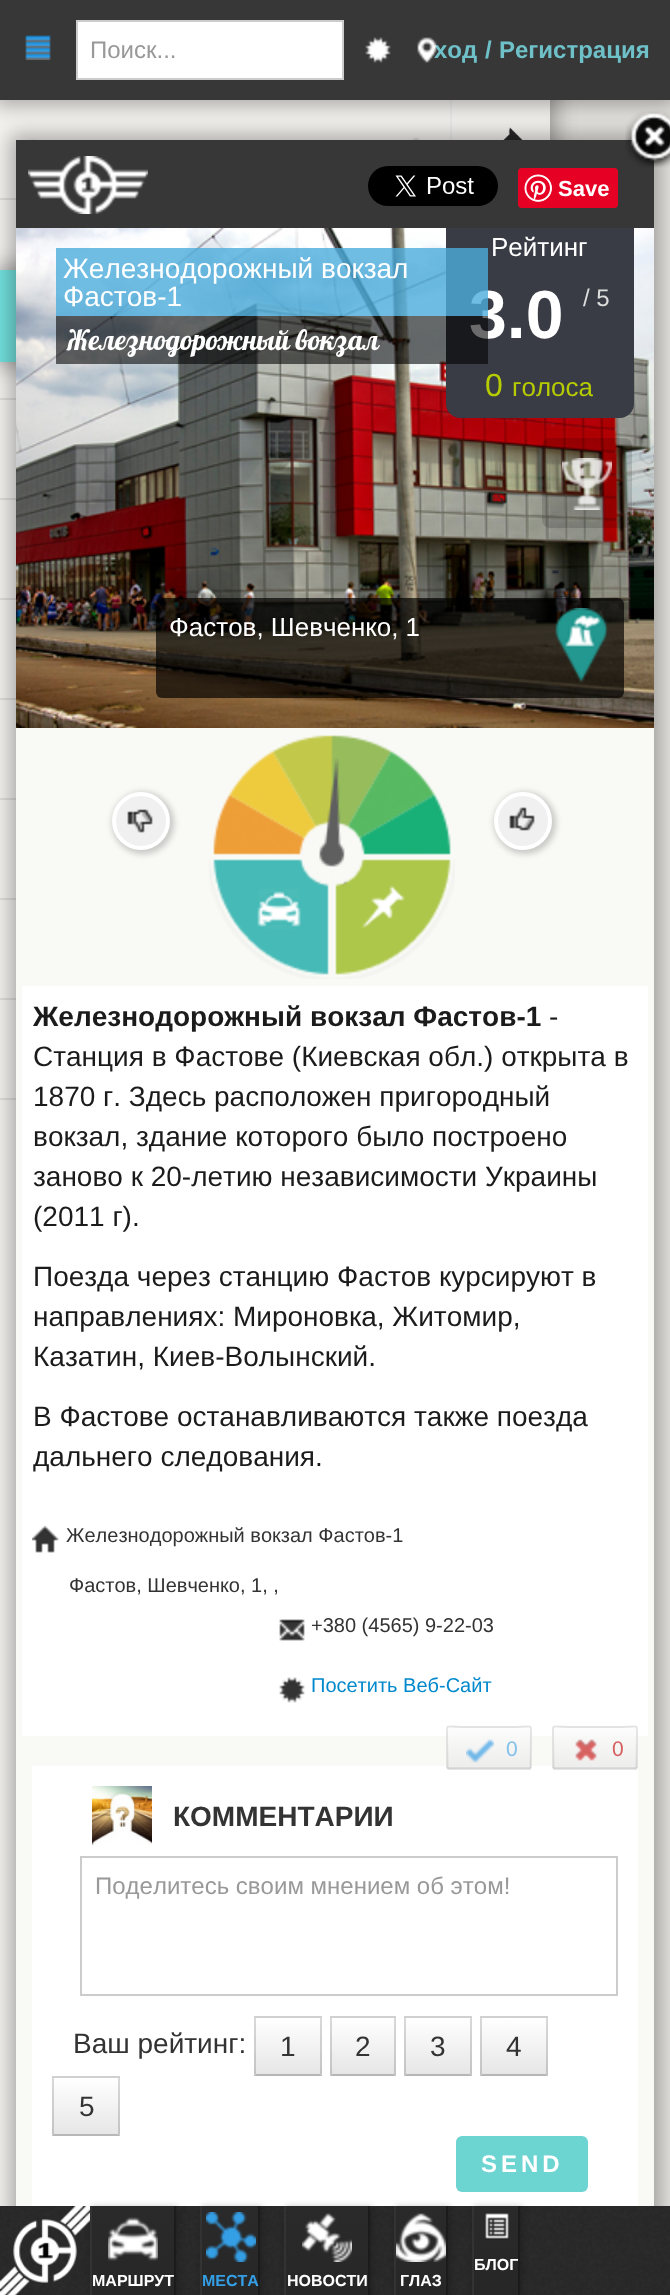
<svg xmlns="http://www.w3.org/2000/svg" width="670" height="2295">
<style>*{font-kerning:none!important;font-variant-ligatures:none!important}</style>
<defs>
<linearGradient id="g1" gradientUnits="userSpaceOnUse" x1="496" y1="2206" x2="496" y2="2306"><stop offset="0" stop-color="#2a2a2a"/><stop offset="1" stop-color="#262626"/></linearGradient>
<linearGradient id="g2" gradientUnits="userSpaceOnUse" x1="133" y1="2206" x2="133" y2="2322"><stop offset="0" stop-color="#2a2a2a"/><stop offset="1" stop-color="#262626"/></linearGradient>
<linearGradient id="g3" gradientUnits="userSpaceOnUse" x1="230" y1="2206" x2="230" y2="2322"><stop offset="0" stop-color="#2a2a2a"/><stop offset="1" stop-color="#262626"/></linearGradient>
<linearGradient id="g4" gradientUnits="userSpaceOnUse" x1="327" y1="2206" x2="327" y2="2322"><stop offset="0" stop-color="#2a2a2a"/><stop offset="1" stop-color="#262626"/></linearGradient>
<linearGradient id="g5" gradientUnits="userSpaceOnUse" x1="421" y1="2206" x2="421" y2="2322"><stop offset="0" stop-color="#2a2a2a"/><stop offset="1" stop-color="#262626"/></linearGradient>
<linearGradient id="g6" gradientUnits="userSpaceOnUse" x1="489" y1="1728" x2="489" y2="1768"><stop offset="0" stop-color="#fff" stop-opacity="0.6"/><stop offset="1" stop-color="#e6e6e6" stop-opacity="0.6"/></linearGradient>
<linearGradient id="g7" gradientUnits="userSpaceOnUse" x1="595" y1="1728" x2="595" y2="1768"><stop offset="0" stop-color="#fff" stop-opacity="0.6"/><stop offset="1" stop-color="#e6e6e6" stop-opacity="0.6"/></linearGradient>
<linearGradient id="g8" gradientUnits="userSpaceOnUse" x1="288" y1="2018" x2="288" y2="2074"><stop offset="0" stop-color="#fff"/><stop offset="1" stop-color="#e6e6e6"/></linearGradient>
<linearGradient id="g9" gradientUnits="userSpaceOnUse" x1="363" y1="2018" x2="363" y2="2074"><stop offset="0" stop-color="#fff"/><stop offset="1" stop-color="#e6e6e6"/></linearGradient>
<linearGradient id="g10" gradientUnits="userSpaceOnUse" x1="438" y1="2018" x2="438" y2="2074"><stop offset="0" stop-color="#fff"/><stop offset="1" stop-color="#e6e6e6"/></linearGradient>
<linearGradient id="g11" gradientUnits="userSpaceOnUse" x1="514" y1="2018" x2="514" y2="2074"><stop offset="0" stop-color="#fff"/><stop offset="1" stop-color="#e6e6e6"/></linearGradient>
<linearGradient id="g12" gradientUnits="userSpaceOnUse" x1="86" y1="2078" x2="86" y2="2134"><stop offset="0" stop-color="#fff"/><stop offset="1" stop-color="#e6e6e6"/></linearGradient>
</defs>
<rect width="100%" height="100%" fill="#e5e3df"/>
<rect x="-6" y="-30" width="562" height="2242" fill="#0000004d" filter="blur(10px)"/>
<rect y="100" width="550" height="2106" fill="#f5f3f0"/>
<rect y="198" width="16" height="2" fill="#e1dfdc"/>
<image x="29" y="139" width="8" height="1" href="media/1.png"/>
<image x="411" y="137" width="9" height="3" href="media/2.png"/>
<rect x="450" y="100" width="2" height="40" fill="#ebebeb"/>
<image x="503" y="127" width="20" height="13" href="media/3.png"/>
<rect y="398" width="16" height="2" fill="#e1dfdc"/>
<rect y="498" width="16" height="2" fill="#e1dfdc"/>
<rect y="598" width="16" height="2" fill="#e1dfdc"/>
<rect y="698" width="16" height="2" fill="#e1dfdc"/>
<rect y="798" width="16" height="2" fill="#e1dfdc"/>
<rect y="898" width="16" height="2" fill="#e1dfdc"/>
<rect y="998" width="16" height="2" fill="#e1dfdc"/>
<rect y="1098" width="16" height="2" fill="#e1dfdc"/>
<rect x="-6" y="-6" width="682" height="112" fill="#0000004d" filter="blur(10px)"/>
<rect width="670" height="100" fill="#373737"/>
<image x="25" y="35" width="26" height="25" href="media/4.png"/>
<rect x="77" y="21" width="266" height="58" fill="#fff" stroke="#ccc" stroke-width="2"/>
<text x="90" y="58" style="font-family:Liberation Sans;font-size:24px;fill:#999">Поиск...</text>
<image x="365" y="37" width="26" height="26" href="media/5.png"/>
<text x="434" y="58" style="font-family:Liberation Sans;font-size:24px;font-weight:bold;fill:#6fc1c9">ход</text>
<image x="417" y="37" width="20" height="26" href="media/6.png"/>
<text x="485" y="58" style="font-family:Liberation Sans;font-size:24px;font-weight:bold;fill:#6fc1c9">/</text>
<text x="499" y="58" style="font-family:Liberation Sans;font-size:24px;font-weight:bold;fill:#6fc1c9">Регистрация</text>
<rect x="-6" y="264" width="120" height="104" rx="14" fill="#0000004d" filter="blur(10px)"/>
<rect y="270" width="16" height="92" fill="#73e2de"/>
<rect x="10" y="134" width="650" height="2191" fill="#0000004d" filter="blur(10px)"/>
<image x="0" y="2206" width="670" height="89" href="media/7.png"/>
<image x="0" y="2206" width="90" height="89" href="media/8.png"/>
<rect x="16" y="728" width="638" height="1478" fill="#f9f9f6"/>
<rect x="32" y="1766" width="606" height="440" fill="#fff"/>
<rect x="474" y="2206" width="48" height="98" fill="#00000033" filter="blur(3px)"/>
<rect x="474" y="2206" width="44" height="89" fill="url(#g1)"/>
<rect x="518" y="2206" width="2" height="89" fill="#1b1b1b"/>
<rect x="472" y="2206" width="2" height="89" fill="#333"/>
<image x="485" y="2213" width="24" height="27" href="media/9.png"/>
<text x="474" y="2270" style="font-family:Liberation Sans;font-size:16px;font-weight:bold;fill:#fff">БЛОГ</text>
<rect x="92" y="2206" width="86" height="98" fill="#00000033" filter="blur(3px)"/>
<rect x="92" y="2206" width="82" height="89" fill="url(#g2)"/>
<rect x="174" y="2206" width="2" height="89" fill="#1b1b1b"/>
<rect x="90" y="2206" width="2" height="89" fill="#333"/>
<image x="108" y="2217" width="50" height="44" href="media/10.png"/>
<text x="92" y="2286" style="font-family:Liberation Sans;font-size:16px;font-weight:bold;fill:#fff">МАРШРУТ</text>
<rect x="202" y="2206" width="60" height="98" fill="#00000033" filter="blur(3px)"/>
<rect x="202" y="2206" width="56" height="89" fill="url(#g3)"/>
<rect x="258" y="2206" width="2" height="89" fill="#1b1b1b"/>
<rect x="200" y="2206" width="2" height="89" fill="#333"/>
<image x="206" y="2212" width="50" height="50" href="media/11.png"/>
<text x="202" y="2286" style="font-family:Liberation Sans;font-size:16px;font-weight:bold;fill:#359fe6">МЕСТА</text>
<rect x="286" y="2206" width="86" height="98" fill="#00000033" filter="blur(3px)"/>
<rect x="286" y="2206" width="82" height="89" fill="url(#g4)"/>
<rect x="368" y="2206" width="2" height="89" fill="#1b1b1b"/>
<rect x="284" y="2206" width="2" height="89" fill="#333"/>
<image x="302" y="2213" width="50" height="49" href="media/12.png"/>
<text x="287" y="2286" style="font-family:Liberation Sans;font-size:16px;font-weight:bold;fill:#fff">НОВОСТИ</text>
<rect x="396" y="2206" width="54" height="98" fill="#00000033" filter="blur(3px)"/>
<rect x="396" y="2206" width="50" height="89" fill="url(#g5)"/>
<rect x="446" y="2206" width="2" height="89" fill="#1b1b1b"/>
<rect x="394" y="2206" width="2" height="89" fill="#333"/>
<image x="396" y="2213" width="50" height="49" href="media/13.png"/>
<text x="400" y="2286" style="font-family:Liberation Sans;font-size:16px;font-weight:bold;fill:#fff">ГЛАЗ</text>
<rect x="16" y="140" width="638" height="88" fill="#373737"/>
<image x="625" y="110" width="45" height="58" href="media/14.png"/>
<image x="28" y="156" width="120" height="58" href="media/15.png"/>
<image x="368" y="166" width="130" height="40" href="media/16.png"/>
<rect x="518" y="168" width="100" height="40" rx="4" fill="#e60023"/>
<image x="524" y="174" width="28" height="28" href="media/17.png"/>
<text x="558" y="196" style="font-family:Liberation Sans;font-size:22px;font-weight:bold;fill:#fff">Save</text>
<image x="16" y="228" width="638" height="500" href="media/18.png"/>
<path d="M446 228h188v176c0 7.5-6.5 14-14 14h-160c-7.5 0-14-6.5-14-14z" fill="#393c45"/>
<text x="469" y="338" style="font-family:Liberation Sans;font-size:68px;font-weight:bold;fill:#fff">3.0</text>
<rect x="56" y="248" width="432" height="68" fill="#4caddccc"/>
<text x="63" y="278" style="font-family:Liberation Sans;font-size:28px;fill:#fff">Железнодорожный вокзал</text>
<text x="63" y="306" style="font-family:Liberation Sans;font-size:28px;fill:#fff">Фастов-1</text>
<rect x="56" y="316" width="432" height="48" fill="#00000094"/>
<text x="67" y="350" style="font-family:Lobster;font-size:28px;fill:#fff">Железнодорожный вокзал</text>
<text x="491" y="256" style="font-family:Liberation Sans;font-size:26px;fill:#fff">Рейтинг</text>
<text x="583" y="306" style="font-family:Liberation Sans;font-size:24px;fill:#ddd">/ 5</text>
<text x="485" y="396" style="font-family:Liberation Sans;font-size:32px;fill:#b7cc00">0</text>
<text x="512" y="396" style="font-family:Liberation Sans;font-size:26px;fill:#b7cc00">голоса</text>
<rect x="542" y="438" width="90" height="90" rx="8" fill="#00000024"/>
<image x="562" y="458" width="50" height="52" href="media/19.png"/>
<rect x="156" y="598" width="468" height="100" rx="6" fill="#000000ad"/>
<text x="169" y="636" style="font-family:Liberation Sans;font-size:26px;fill:#fff">Фастов, Шевченко, 1</text>
<image x="555" y="608" width="53" height="75" href="media/20.png"/>
<rect x="112" y="792" width="62" height="62" rx="31" fill="#00000033" filter="blur(3px)"/>
<circle cx="141" cy="821" r="27" fill="#f0f0f0" stroke="#fff" stroke-width="4"/>
<image x="127" y="809" width="26" height="24" href="media/21.png"/>
<image x="213" y="735" width="238" height="151" href="media/22.png"/>
<image x="319" y="758" width="26" height="109" href="media/23.png"/>
<rect x="494" y="792" width="62" height="62" rx="31" fill="#00000033" filter="blur(3px)"/>
<circle cx="523" cy="821" r="27" fill="#f0f0f0" stroke="#fff" stroke-width="4"/>
<image x="509" y="807" width="26" height="24" href="media/24.png"/>
<image x="209" y="859" width="124" height="120" href="media/25.png"/>
<image x="331" y="859" width="124" height="120" href="media/26.png"/>
<rect x="22" y="986" width="626" height="750" fill="#fff"/>
<text x="33" y="1026" style="font-family:Liberation Sans;font-size:28px;font-weight:bold;fill:#1b1b1b">Железнодорожный вокзал Фастов-1</text>
<text x="549" y="1026" style="font-family:Liberation Sans;font-size:28px;fill:#1b1b1b">-</text>
<text x="33" y="1066" style="font-family:Liberation Sans;font-size:28px;fill:#1b1b1b">Станция в Фастове (Киевская обл.) открыта в</text>
<text x="33" y="1106" style="font-family:Liberation Sans;font-size:28px;fill:#1b1b1b">1870 г. Здесь расположен пригородный</text>
<text x="33" y="1146" style="font-family:Liberation Sans;font-size:28px;fill:#1b1b1b">вокзал, здание которого было построено</text>
<text x="33" y="1186" style="font-family:Liberation Sans;font-size:28px;fill:#1b1b1b">заново к 20-летию независимости Украины</text>
<text x="33" y="1226" style="font-family:Liberation Sans;font-size:28px;fill:#1b1b1b">(2011 г).</text>
<text x="33" y="1286" style="font-family:Liberation Sans;font-size:28px;fill:#1b1b1b">Поезда через станцию Фастов курсируют в</text>
<text x="33" y="1326" style="font-family:Liberation Sans;font-size:28px;fill:#1b1b1b">направлениях: Мироновка, Житомир,</text>
<text x="33" y="1366" style="font-family:Liberation Sans;font-size:28px;fill:#1b1b1b">Казатин, Киев-Волынский.</text>
<text x="33" y="1426" style="font-family:Liberation Sans;font-size:28px;fill:#1b1b1b">В Фастове останавливаются также поезда</text>
<text x="33" y="1466" style="font-family:Liberation Sans;font-size:28px;fill:#1b1b1b">дальнего следования.</text>
<image x="32" y="1526" width="27" height="27" href="media/27.png"/>
<text x="66" y="1542" style="font-family:Liberation Sans;font-size:20px;fill:#333">Железнодорожный вокзал Фастов-1</text>
<text x="69" y="1592" style="font-family:Liberation Sans;font-size:20px;fill:#333">Фастов, Шевченко, 1, ,</text>
<image x="279" y="1619" width="26" height="22" href="media/28.png"/>
<text x="311" y="1632" style="font-family:Liberation Sans;font-size:20px;fill:#333">+380 (4565) 9-22-03</text>
<image x="279" y="1677" width="26" height="26" href="media/29.png"/>
<text x="311" y="1692" style="font-family:Liberation Sans;font-size:20px;fill:#08c">Посетить Веб-Сайт</text>
<rect x="446" y="1726" width="86" height="44" rx="2" fill="#f5f5f599"/>
<rect x="446" y="1728" width="86" height="40" fill="url(#g6)"/>
<path d="M530.5 1768.5h-83" fill="none" stroke="#66666640" stroke-width="2"/>
<path d="M447.5 1768.5l-.5-34c0-11.5-1-7.5 14.5-7.5h55c15.5 0 14.5-4 14.5 7.5l-.5 34" fill="none" stroke="#00000017" stroke-width="2"/>
<image x="466" y="1739" width="28" height="24" href="media/30.png"/>
<text x="506" y="1756" style="font-family:Liberation Sans;font-size:21px;fill:#81c1eb">0</text>
<rect x="552" y="1726" width="86" height="44" rx="2" fill="#f5f5f599"/>
<rect x="552" y="1728" width="86" height="40" fill="url(#g7)"/>
<path d="M636.5 1768.5h-83" fill="none" stroke="#66666640" stroke-width="2"/>
<path d="M553.5 1768.5l-.5-34c0-11.5-1-7.5 14.5-7.5h55c15.5 0 14.5-4 14.5 7.5l-.5 34" fill="none" stroke="#00000017" stroke-width="2"/>
<image x="575" y="1739" width="22" height="22" href="media/31.png"/>
<text x="612" y="1756" style="font-family:Liberation Sans;font-size:21px;fill:#d66161">0</text>
<image x="92" y="1786" width="60" height="60" href="media/32.png"/>
<text x="173" y="1826" style="font-family:Liberation Sans;font-size:28px;font-weight:bold;fill:#333">КОММЕНТАРИИ</text>
<rect x="81" y="1857" width="536" height="138" fill="none" stroke="#ccc" stroke-width="2"/>
<text x="95" y="1894" style="font-family:Liberation Sans;font-size:24px;fill:#999">Поделитесь своим мнением об этом!</text>
<text x="73" y="2053" style="font-family:Liberation Sans;font-size:28px;fill:#333">Ваш рейтинг:</text>
<rect x="254" y="2016" width="68" height="60" fill="#f5f5f5"/>
<rect x="254" y="2018" width="68" height="56" fill="url(#g8)"/>
<path d="M254 2016h68l-2 2h-64z" fill="#d0d0d0"/>
<path d="M322 2016v60l-2-2v-56z" fill="#00000026"/>
<path d="M322 2076h-68l2-2h64z" fill="#00000040"/>
<path d="M254 2076v-60l2 2v56z" fill="#00000026"/>
<text x="280" y="2056" style="font-family:Liberation Sans;font-size:28px;fill:#333">1</text>
<rect x="330" y="2016" width="66" height="60" fill="#f5f5f5"/>
<rect x="330" y="2018" width="66" height="56" fill="url(#g9)"/>
<path d="M330 2016h66l-2 2h-62z" fill="#d0d0d0"/>
<path d="M396 2016v60l-2-2v-56z" fill="#00000026"/>
<path d="M396 2076h-66l2-2h62z" fill="#00000040"/>
<path d="M330 2076v-60l2 2v56z" fill="#00000026"/>
<text x="355" y="2056" style="font-family:Liberation Sans;font-size:28px;fill:#333">2</text>
<rect x="404" y="2016" width="68" height="60" fill="#f5f5f5"/>
<rect x="404" y="2018" width="68" height="56" fill="url(#g10)"/>
<path d="M404 2016h68l-2 2h-64z" fill="#d0d0d0"/>
<path d="M472 2016v60l-2-2v-56z" fill="#00000026"/>
<path d="M472 2076h-68l2-2h64z" fill="#00000040"/>
<path d="M404 2076v-60l2 2v56z" fill="#00000026"/>
<text x="430" y="2056" style="font-family:Liberation Sans;font-size:28px;fill:#333">3</text>
<rect x="480" y="2016" width="68" height="60" fill="#f5f5f5"/>
<rect x="480" y="2018" width="68" height="56" fill="url(#g11)"/>
<path d="M480 2016h68l-2 2h-64z" fill="#d0d0d0"/>
<path d="M548 2016v60l-2-2v-56z" fill="#00000026"/>
<path d="M548 2076h-68l2-2h64z" fill="#00000040"/>
<path d="M480 2076v-60l2 2v56z" fill="#00000026"/>
<text x="506" y="2056" style="font-family:Liberation Sans;font-size:28px;fill:#333">4</text>
<rect x="52" y="2076" width="68" height="60" fill="#f5f5f5"/>
<rect x="52" y="2078" width="68" height="56" fill="url(#g12)"/>
<path d="M52 2076h68l-2 2h-64z" fill="#d0d0d0"/>
<path d="M120 2076v60l-2-2v-56z" fill="#00000026"/>
<path d="M120 2136h-68l2-2h64z" fill="#00000040"/>
<path d="M52 2136v-60l2 2v56z" fill="#00000026"/>
<text x="79" y="2116" style="font-family:Liberation Sans;font-size:28px;fill:#333">5</text>
<rect x="456" y="2136" width="132" height="56" rx="6" fill="#6cd5d1"/>
<text x="481" y="2172" style="font-family:Liberation Sans;font-size:24px;font-weight:bold;letter-spacing:4px;fill:#fff">SEND</text>
</svg>
